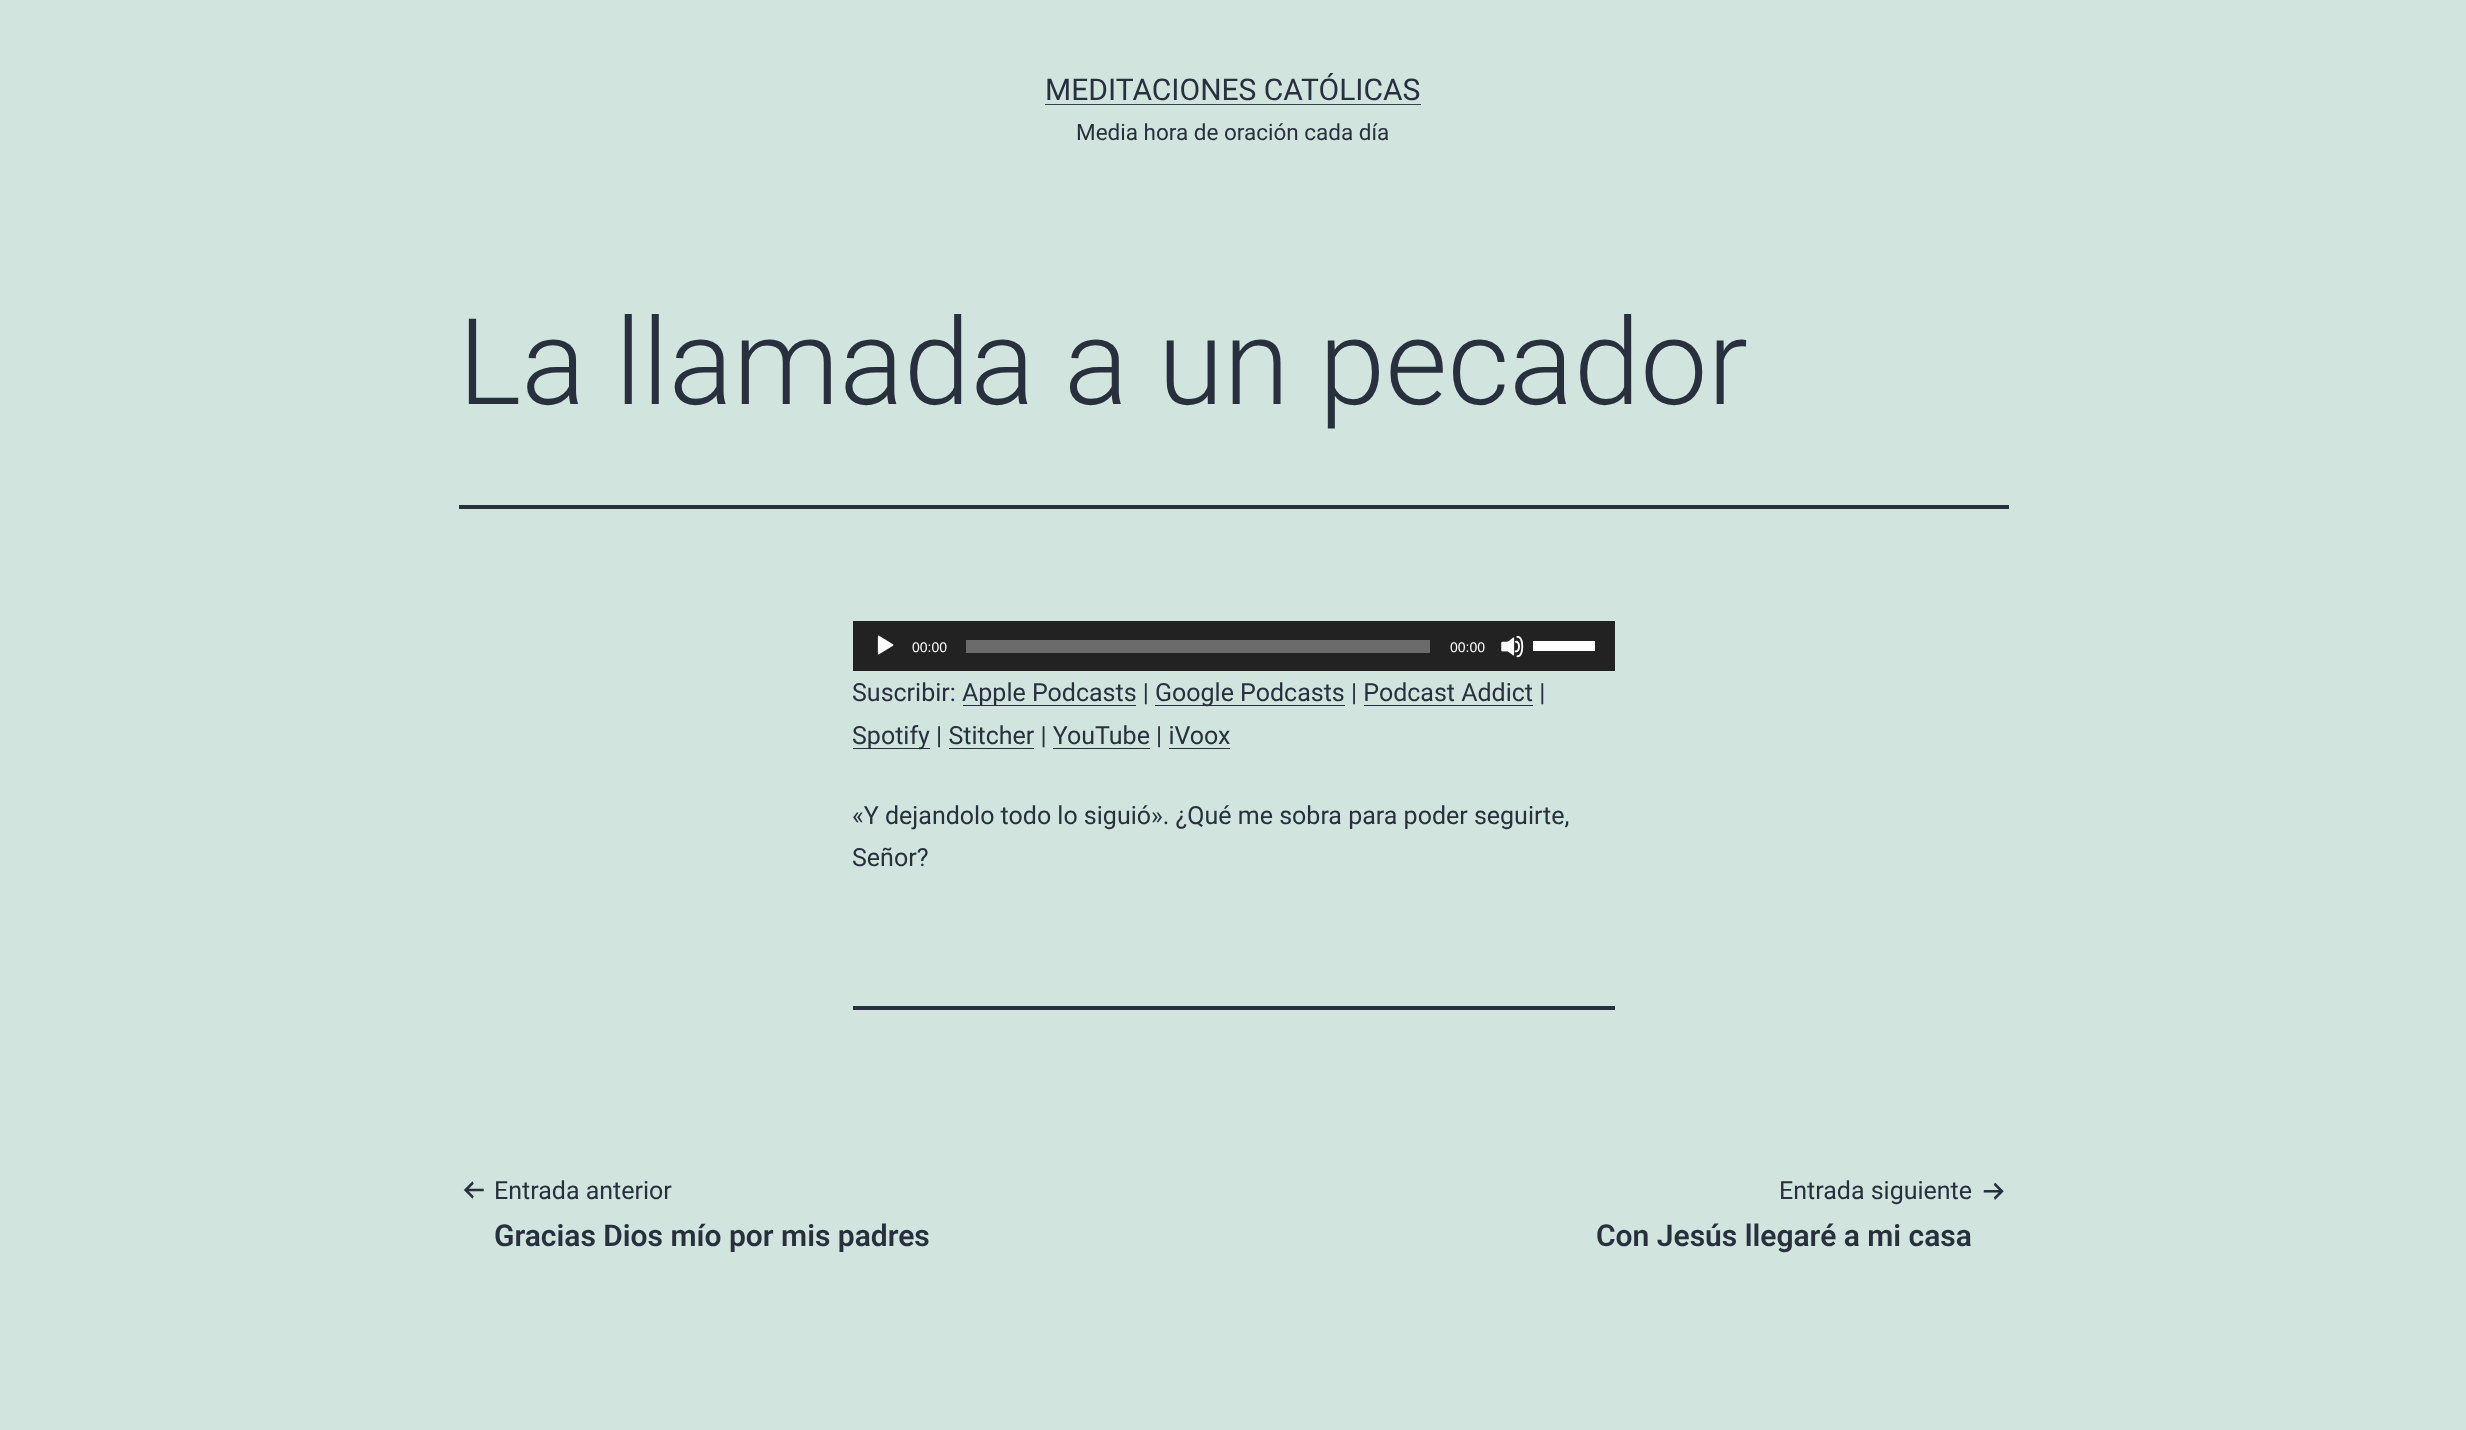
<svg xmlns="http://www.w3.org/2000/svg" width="2466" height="1430">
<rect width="100%" height="100%" fill="#d1e4dd"/>
<text x="1045" y="100" style="font-family:Roboto;font-size:30px;fill:#28303d">MEDITACIONES CATÓLICAS</text>
<rect x="1045" y="104" width="376" height="1" fill="#39414d"/>
<text x="1076" y="140" style="font-family:Roboto;font-size:22.5px;fill:#28303d">Media hora de oración cada día</text>
<rect x="459" y="505" width="1550" height="4" fill="#28303d"/>
<text x="458" y="404" style="font-family:Roboto;font-size:120px;font-weight:300;fill:#28303d">La llamada a un pecador</text>
<rect x="853" y="621" width="762" height="50" fill="#222"/>
<image x="877" y="635" width="17" height="20" href="media/1.png"/>
<text x="912" y="652" style="font-family:Liberation Sans;font-size:14px;fill:#fff">00:00</text>
<rect x="966" y="640" width="464" height="13" fill="#6b6b6b"/>
<text x="1450" y="652" style="font-family:Liberation Sans;font-size:14px;fill:#fff">00:00</text>
<image x="1501" y="635" width="23" height="23" href="media/2.png"/>
<rect x="1533" y="641" width="62" height="10" fill="#fff"/>
<text x="852" y="701" style="font-family:Roboto;font-size:25px;fill:#28303d">Suscribir:</text>
<rect x="963" y="705" width="173" height="1" fill="#28303d"/>
<text x="962" y="701" style="font-family:Roboto;font-size:25px;fill:#28303d">Apple Podcasts |</text>
<rect x="1155" y="705" width="190" height="1" fill="#28303d"/>
<text x="1155" y="701" style="font-family:Roboto;font-size:25px;fill:#28303d">Google Podcasts | Podcast Addict |</text>
<rect x="1364" y="705" width="169" height="1" fill="#28303d"/>
<rect x="853" y="748" width="77" height="1" fill="#28303d"/>
<text x="852" y="744" style="font-family:Roboto;font-size:25px;fill:#28303d">Spotify | Stitcher | YouTube | iVoox</text>
<rect x="949" y="748" width="85" height="1" fill="#28303d"/>
<rect x="1053" y="748" width="97" height="1" fill="#28303d"/>
<rect x="1169" y="748" width="61" height="1" fill="#28303d"/>
<text x="852" y="824" style="font-family:Roboto;font-size:25px;fill:#28303d">«Y dejandolo todo lo siguió». ¿Qué me sobra para poder seguirte,</text>
<text x="852" y="866" style="font-family:Roboto;font-size:25px;fill:#28303d">Señor?</text>
<rect x="853" y="1006" width="762" height="4" fill="#28303d"/>
<image x="463" y="1181" width="21" height="18" href="media/3.png"/>
<text x="494" y="1199" style="font-family:Roboto;font-size:25px;fill:#28303d">Entrada anterior</text>
<text x="494" y="1246" style="font-family:Roboto;font-size:30px;font-weight:600;fill:#28303d">Gracias Dios mío por mis padres</text>
<text x="1779" y="1199" style="font-family:Roboto;font-size:25px;fill:#28303d">Entrada siguiente</text>
<image x="1983" y="1182" width="21" height="18" href="media/4.png"/>
<text x="1596" y="1246" style="font-family:Roboto;font-size:30px;font-weight:600;fill:#28303d">Con Jesús llegaré a mi casa</text>
</svg>
